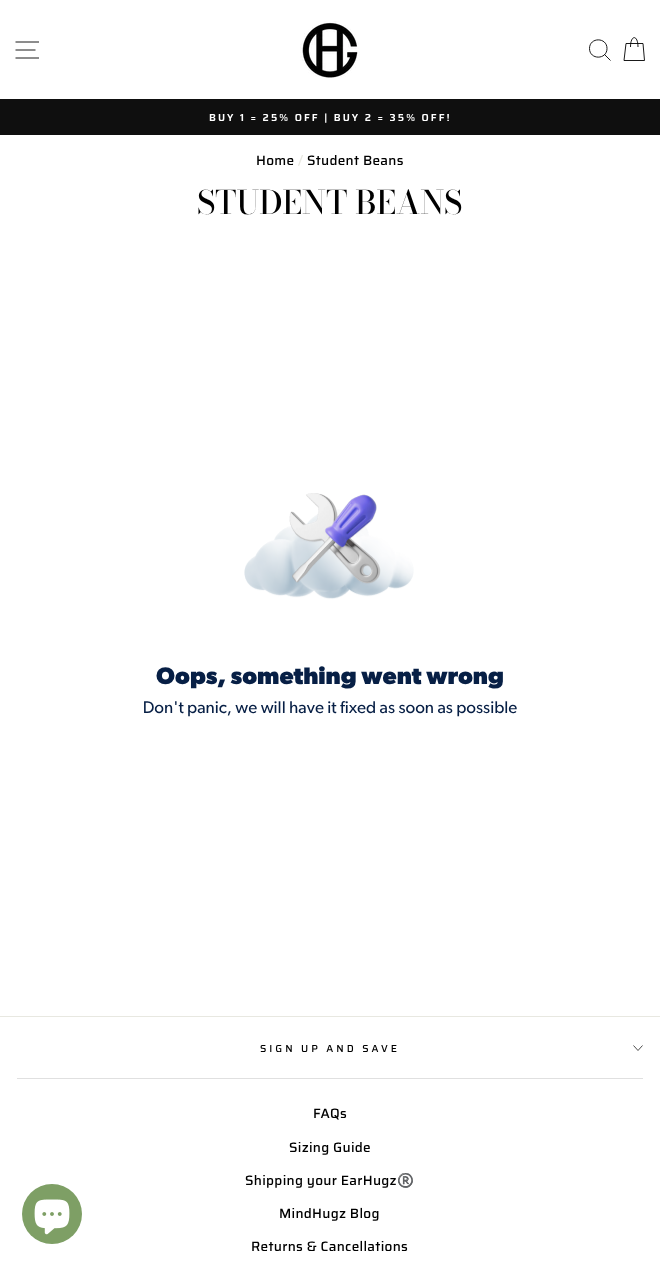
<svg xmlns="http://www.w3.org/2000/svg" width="660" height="1265">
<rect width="100%" height="100%" fill="#fff"/>
<circle cx="52" cy="1214" r="30" fill="#7e9f65"/>
<image x="34" y="1199" width="36" height="36" href="media/1.png"/>
<path d="M15.5 42h23.5m-23.5 8h20m-20 8h23.5" fill="none" stroke="#000" stroke-width="0.9"/>
<image x="300" y="21" width="60" height="57" href="media/2.png"/>
<path d="M607 48.5c0 11.5-17.5 11.5-17.5 0c0-11.5 17.5-11.5 17.5 0zm3.5 12l-6-6m26-7.5c0-12.5 7.5-12.5 7.5 0m-12-3.5h17l1.5 17h-20.5z" fill="none" stroke="#000" stroke-width="0.9"/>
<rect y="99" width="660" height="36" fill="#0f0f0f"/>
<text x="209" y="121" style="font-family:Saira;font-size:10.2px;font-weight:600;letter-spacing:2.05px;fill:#fff">BUY 1 = 25% OFF | BUY 2 = 35% OFF!</text>
<text x="256" y="165" style="font-family:Saira;font-size:13.6px;font-weight:500;letter-spacing:0.3px;fill:#000">Home</text>
<text x="298" y="165" style="font-family:Saira;font-size:13.6px;font-weight:500;letter-spacing:0.3px;fill:#e8e8e1">/</text>
<text x="307" y="165" style="font-family:Saira;font-size:13.6px;font-weight:500;letter-spacing:0.3px;fill:#000">Student Beans</text>
<text x="197" y="214" style="font-family:Bodoni Moda;font-size:32.25px;font-weight:500;fill:#000">STUDENT BEANS</text>
<image x="144" y="493" width="373" height="224" href="media/3.png"/>
<rect y="1016" width="660" height="1" fill="#e8e8e1"/>
<text x="260" y="1052" style="font-family:Saira;font-size:10.2px;font-weight:500;letter-spacing:3px;fill:#000">SIGN UP AND SAVE</text>
<path d="M633.5 1045.5l4.5 5l4.5-5" fill="none" stroke="#000" stroke-width="0.7"/>
<rect x="17" y="1078" width="626" height="1" fill="#e0e0e0"/>
<text x="313" y="1118" style="font-family:Saira;font-size:13.6px;font-weight:500;letter-spacing:0.3px;fill:#000">FAQs</text>
<text x="289" y="1152" style="font-family:Saira;font-size:13.6px;font-weight:500;letter-spacing:0.3px;fill:#000">Sizing Guide</text>
<text x="245" y="1185" style="font-family:Saira;font-size:13.6px;font-weight:500;letter-spacing:0.3px;fill:#000">Shipping your EarHugz</text>
<text x="397" y="1185" style="font-family:Noto Color Emoji;font-size:13.6px;letter-spacing:0.3px;fill:#000">®️</text>
<text x="279" y="1218" style="font-family:Saira;font-size:13.6px;font-weight:500;letter-spacing:0.3px;fill:#000">MindHugz Blog</text>
<text x="251" y="1251" style="font-family:Saira;font-size:13.6px;font-weight:500;letter-spacing:0.3px;fill:#000">Returns &amp; Cancellations</text>
</svg>
